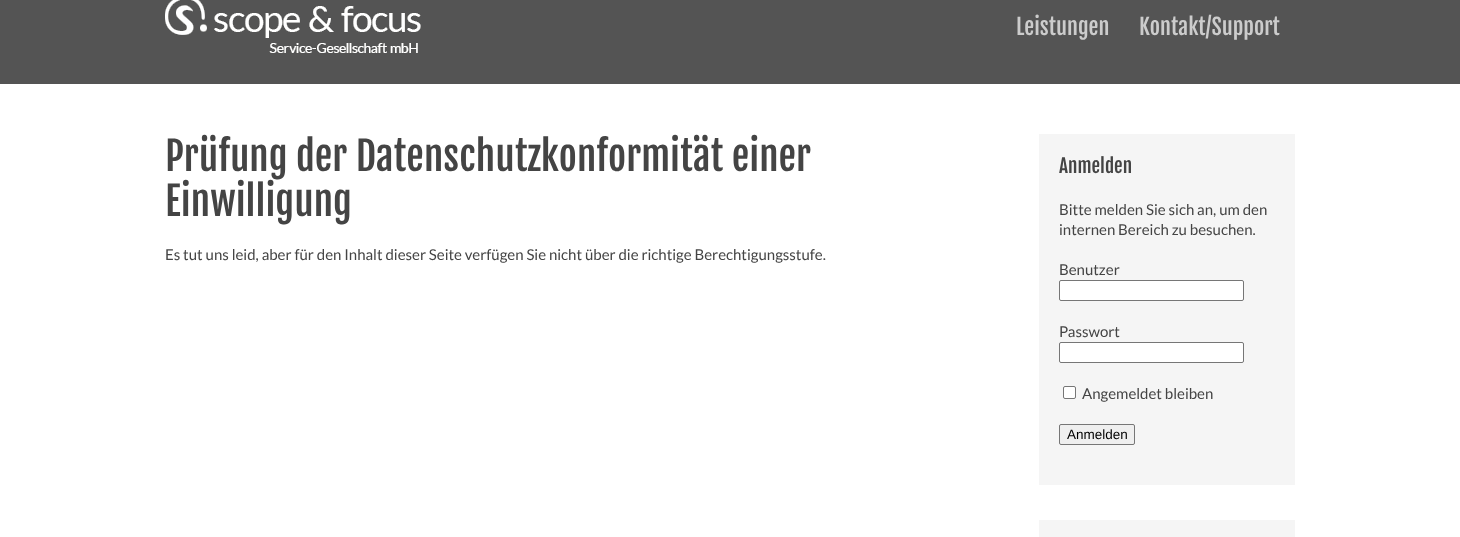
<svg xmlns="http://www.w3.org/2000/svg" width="1460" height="537">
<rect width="100%" height="100%" fill="#fff"/>
<rect width="1460" height="84" fill="#545454"/>
<image x="165" y="0" width="256" height="53" href="media/1.png"/>
<text x="1016" y="35" style="font-family:Fjalla One;font-size:22px;fill:#ccc">Leistungen</text>
<text x="1139" y="35" style="font-family:Fjalla One;font-size:22px;fill:#ccc">Kontakt/Support</text>
<text x="165" y="171" style="font-family:Fjalla One;font-size:39px;fill:#444">Prüfung der Datenschutzkonformität einer</text>
<text x="165" y="216" style="font-family:Fjalla One;font-size:39px;fill:#444">Einwilligung</text>
<text x="165" y="260" style="font-family:Lato;font-size:15px;fill:#444">Es tut uns leid, aber für den Inhalt dieser Seite verfügen Sie nicht über die richtige Berechtigungsstufe.</text>
<rect x="1039" y="134" width="256" height="351" fill="#f5f5f5"/>
<text x="1059" y="173" style="font-family:Fjalla One;font-size:19px;fill:#444">Anmelden</text>
<text x="1059" y="215" style="font-family:Lato;font-size:15px;fill:#444">Bitte melden Sie sich an, um den</text>
<text x="1059" y="235" style="font-family:Lato;font-size:15px;fill:#444">internen Bereich zu besuchen.</text>
<text x="1059" y="275" style="font-family:Lato;font-size:15px;fill:#444">Benutzer</text>
<rect x="1059.5" y="280.5" width="184" height="20" rx="1.5" fill="#fff" stroke="#767676"/>
<text x="1059" y="337" style="font-family:Lato;font-size:15px;fill:#444">Passwort</text>
<rect x="1059.5" y="342.5" width="184" height="20" rx="1.5" fill="#fff" stroke="#767676"/>
<rect x="1063.5" y="386.5" width="12" height="12" rx="1.5" fill="#fff" stroke="#767676"/>
<text x="1082" y="399" style="font-family:Lato;font-size:15px;fill:#444">Angemeldet bleiben</text>
<rect x="1059.5" y="424.5" width="75" height="20" rx="1.5" fill="#efefef" stroke="#767676"/>
<text x="1067" y="439" style="font-family:Liberation Sans;font-size:13.5px;fill:#000">Anmelden</text>
<rect x="1039" y="520" width="256" height="17" fill="#f5f5f5"/>
</svg>
